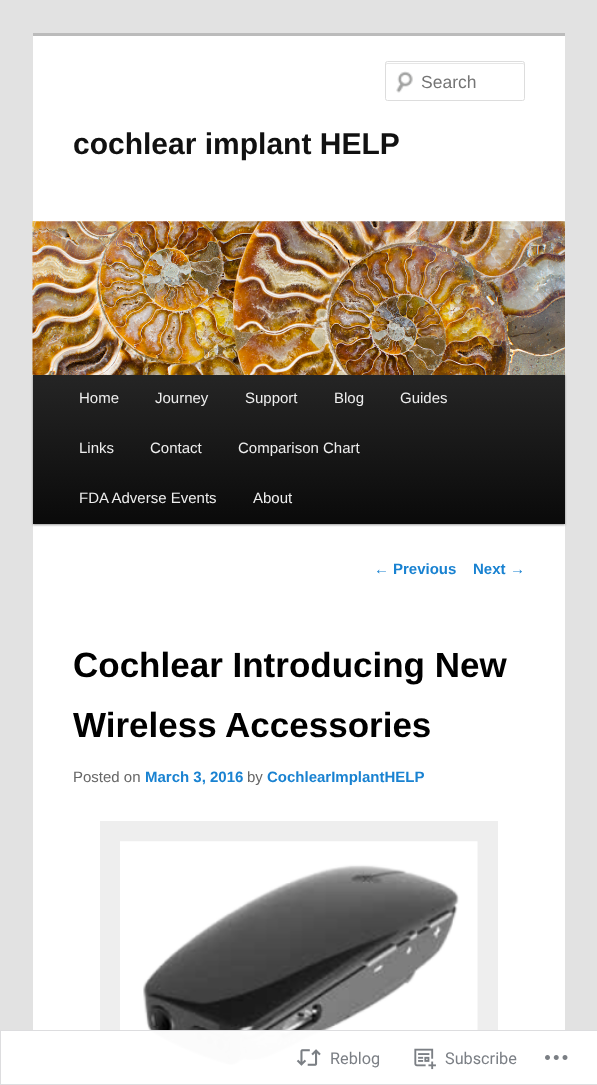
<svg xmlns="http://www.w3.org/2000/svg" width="597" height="1085">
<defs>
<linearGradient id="g1" gradientUnits="userSpaceOnUse" x1="299" y1="374" x2="299" y2="524"><stop offset="0" stop-color="#252525"/><stop offset="1" stop-color="#0a0a0a"/></linearGradient>
</defs>
<rect width="100%" height="100%" fill="#e2e2e2"/>
<rect x="33" y="36" width="532" height="1049" fill="#fff"/>
<rect x="33" y="33" width="532" height="3" fill="#bbb"/>
<image x="396" y="71" width="17" height="22" href="media/1.png"/>
<path d="M388 64h134c1 0 2 0 2 1c0-1 0-2-1-2h-136c-1 0-1 1-1 2c0-1 1-1 2-1z" fill="#e6e6e6"/>
<rect x="385.5" y="61.5" width="139" height="39" rx="2" fill="none" stroke="#ddd"/>
<text x="421" y="88" style="font-family:Liberation Sans;font-size:17.5px;fill:#757575">Search</text>
<text x="73" y="154" style="font-family:Liberation Sans;font-size:30px;font-weight:bold;fill:#111">cochlear implant HELP</text>
<rect x="33" y="375" width="532" height="150" fill="#00000066" filter="blur(1px)"/>
<image x="32" y="221" width="533" height="154" href="media/2.png"/>
<rect x="33" y="375" width="532" height="149" fill="url(#g1)"/>
<text x="79" y="403" style="font-family:Liberation Sans;font-size:15px;fill:#eee">Home</text>
<text x="155" y="403" style="font-family:Liberation Sans;font-size:15px;fill:#eee">Journey</text>
<text x="245" y="403" style="font-family:Liberation Sans;font-size:15px;fill:#eee">Support</text>
<text x="334" y="403" style="font-family:Liberation Sans;font-size:15px;fill:#eee">Blog</text>
<text x="400" y="403" style="font-family:Liberation Sans;font-size:15px;fill:#eee">Guides</text>
<text x="79" y="453" style="font-family:Liberation Sans;font-size:15px;fill:#eee">Links</text>
<text x="150" y="453" style="font-family:Liberation Sans;font-size:15px;fill:#eee">Contact</text>
<text x="238" y="453" style="font-family:Liberation Sans;font-size:15px;fill:#eee">Comparison Chart</text>
<text x="79" y="503" style="font-family:Liberation Sans;font-size:15px;fill:#eee">FDA Adverse Events</text>
<text x="253" y="503" style="font-family:Liberation Sans;font-size:15px;fill:#eee">About</text>
<text x="374" y="574" style="font-family:Liberation Sans;font-size:15px;fill:#1982d1">←</text>
<text x="393" y="574" style="font-family:Liberation Sans;font-size:15px;font-weight:bold;fill:#1982d1">Previous</text>
<text x="473" y="574" style="font-family:Liberation Sans;font-size:15px;font-weight:bold;fill:#1982d1">Next</text>
<text x="510" y="574" style="font-family:Liberation Sans;font-size:15px;fill:#1982d1">→</text>
<text x="73" y="677" style="font-family:Liberation Sans;font-size:35px;font-weight:bold;fill:#000">Cochlear Introducing New</text>
<text x="73" y="737" style="font-family:Liberation Sans;font-size:35px;font-weight:bold;fill:#000">Wireless Accessories</text>
<text x="73" y="782" style="font-family:Liberation Sans;font-size:15px;fill:#666">Posted on</text>
<text x="145" y="782" style="font-family:Liberation Sans;font-size:15px;font-weight:bold;fill:#1982d1">March 3, 2016</text>
<text x="247" y="782" style="font-family:Liberation Sans;font-size:15px;fill:#666">by</text>
<text x="267" y="782" style="font-family:Liberation Sans;font-size:15px;font-weight:bold;fill:#1982d1">CochlearImplantHELP</text>
<rect x="100" y="821" width="398" height="264" fill="#eee"/>
<image x="120" y="841" width="358" height="241" href="media/3.png"/>
<rect y="1030" width="597" height="55" fill="#fffffffa"/>
<rect x="0.5" y="1030.5" width="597" height="54" fill="none" stroke="#dcdcdefa"/>
<image x="296" y="1049" width="25" height="17" href="media/4.png"/>
<text x="330" y="1064" style="font-family:Roboto;font-size:16.25px;fill:#7b7f85">Reblog</text>
<image x="414" y="1048" width="22" height="22" href="media/5.png"/>
<text x="445" y="1064" style="font-family:Roboto;font-size:16.25px;fill:#7b7f85">Subscribe</text>
<image x="545" y="1055" width="23" height="5" href="media/6.png"/>
</svg>
